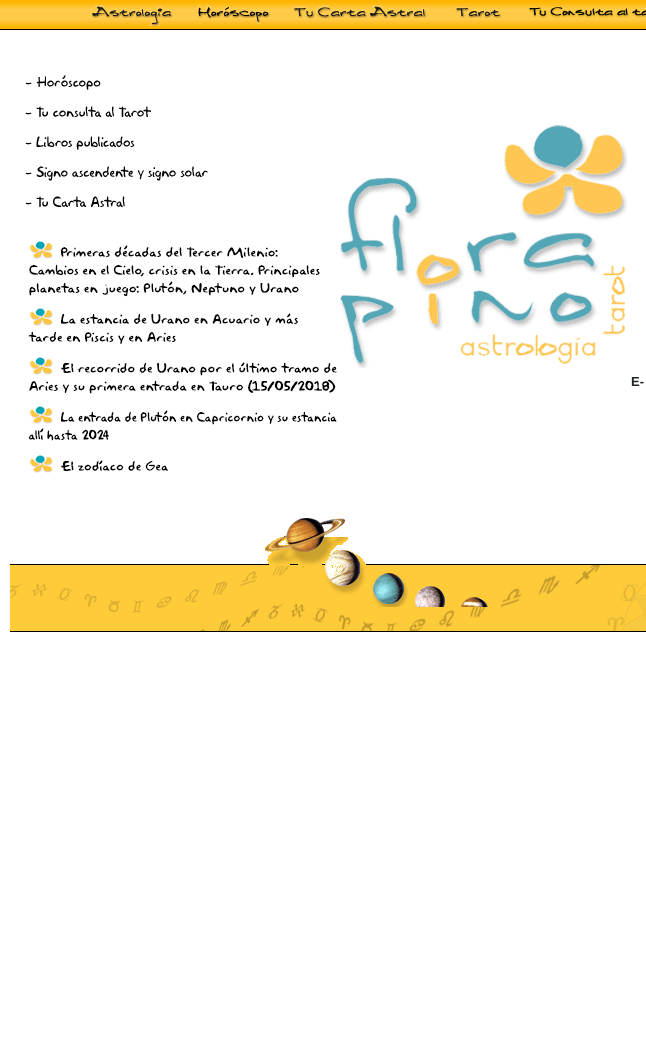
<svg xmlns="http://www.w3.org/2000/svg" width="646" height="1056">
<rect width="100%" height="100%" fill="#fff"/>
<image x="0" y="0" width="646" height="29" href="media/1.png"/>
<rect y="29" width="646" height="1" fill="#000"/>
<image x="91" y="5" width="82" height="21" href="media/2.png"/>
<image x="197" y="5" width="73" height="19" href="media/3.png"/>
<image x="293" y="5" width="134" height="14" href="media/4.png"/>
<image x="455" y="7" width="47" height="11" href="media/5.png"/>
<image x="528" y="7" width="118" height="11" href="media/6.png"/>
<image x="25" y="75" width="183" height="132" href="media/7.png"/>
<image x="28" y="241" width="309" height="232" href="media/8.png"/>
<image x="340" y="125" width="288" height="243" href="media/9.png"/>
<text x="631" y="386" style="font-family:Liberation Sans;font-size:13px;font-weight:bold;fill:#212529">E-</text>
<rect x="10" y="564" width="636" height="1" fill="#000"/>
<rect x="10" y="565" width="636" height="66" fill="#ffcb39"/>
<image x="10" y="565" width="591" height="66" href="media/11.png"/>
<image x="265" y="518" width="223" height="89" href="media/10.png"/>
<image x="607" y="576" width="39" height="55" href="media/12.png"/>
<rect x="10" y="631" width="636" height="1" fill="#000"/>
</svg>
